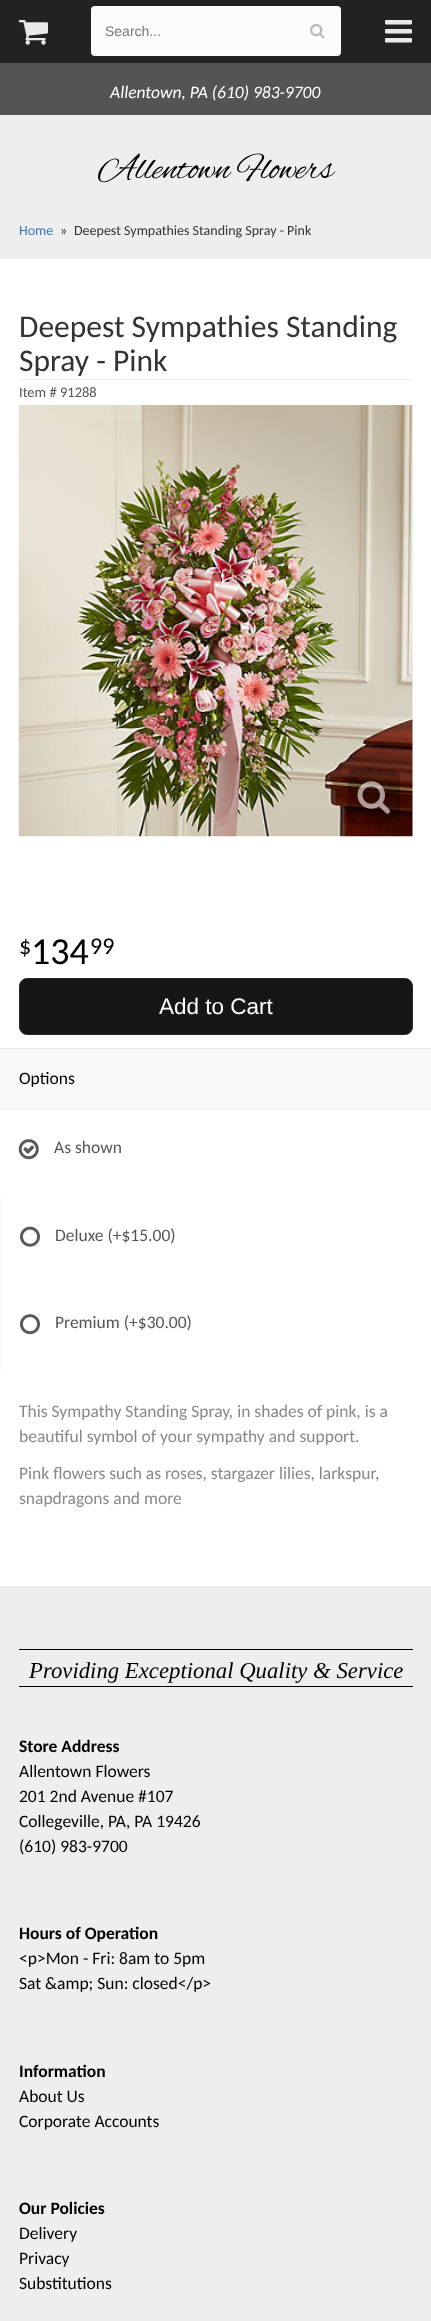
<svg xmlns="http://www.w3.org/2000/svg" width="431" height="2321">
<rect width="100%" height="100%" fill="#eee"/>
<rect y="63" width="431" height="52" fill="#545454"/>
<rect width="431" height="63" fill="#222"/>
<image x="18" y="20" width="30" height="25" href="media/1.png"/>
<rect x="91" y="6" width="250" height="50" rx="4" fill="#fcfcfc"/>
<text x="105" y="36" style="font-family:Liberation Sans;font-size:14px;fill:#757575">Search...</text>
<image x="310" y="23" width="15" height="16" href="media/2.png"/>
<image x="385" y="20" width="27" height="23" href="media/3.png"/>
<text x="110" y="98" style="font-family:Carlito;font-size:17.5px;font-style:italic;fill:#fff">Allentown, PA (610) 983-9700</text>
<text x="98" y="178" style="font-family:Alex Brush;font-size:36.75px;fill:#000">Allentown Flowers</text>
<text x="19" y="235" style="font-family:Carlito;font-size:14px;fill:#337ab7">Home</text>
<text x="60" y="235" style="font-family:Carlito;font-size:14px;fill:#333">»</text>
<text x="74" y="235" style="font-family:Carlito;font-size:14px;fill:#333">Deepest Sympathies Standing Spray - Pink</text>
<rect y="259" width="431" height="1327" fill="#fff"/>
<rect x="19" y="379" width="394" height="1" fill="#eee"/>
<text x="19" y="337" style="font-family:Carlito;font-size:31.5px;fill:#333">Deepest Sympathies Standing</text>
<text x="19" y="371" style="font-family:Carlito;font-size:31.5px;fill:#333">Spray - Pink</text>
<text x="19" y="397" style="font-family:Carlito;font-size:14.5px;fill:#555">Item # 91288</text>
<image x="18" y="405" width="395" height="432" href="media/4.png"/>
<rect x="348" y="769" width="52" height="55" rx="6" fill="#0000003d"/>
<image x="357" y="781" width="33" height="33" href="media/5.png"/>
<text x="19" y="954" style="font-family:Carlito;font-size:24px;fill:#000">$</text>
<text x="31" y="964" style="font-family:Carlito;font-size:38px;fill:#000">134</text>
<text x="90" y="954" style="font-family:Carlito;font-size:24px;fill:#000">99</text>
<rect x="19.5" y="978.5" width="393" height="56" rx="7.5" fill="#161616" stroke="#292929"/>
<text x="159" y="1014" style="font-family:Liberation Sans;font-size:22.5px;fill:#fff">Add to Cart</text>
<rect y="1049" width="431" height="60" fill="#f9f9f9"/>
<rect y="1048" width="431" height="1" fill="#e6e6e6"/>
<rect y="1109" width="431" height="1" fill="#f3f3f3"/>
<text x="19" y="1084" style="font-family:Carlito;font-size:17.5px;fill:#000">Options</text>
<image x="18" y="1139" width="21" height="21" href="media/6.png"/>
<text x="54" y="1153" style="font-family:Carlito;font-size:17.5px;fill:#555">As shown</text>
<rect y="1198" width="1" height="175" fill="#f6f6f6"/>
<image x="20" y="1226" width="20" height="21" href="media/7.png"/>
<text x="55" y="1241" style="font-family:Carlito;font-size:17.5px;fill:#555">Deluxe (+$15.00)</text>
<image x="20" y="1314" width="20" height="21" href="media/8.png"/>
<text x="55" y="1328" style="font-family:Carlito;font-size:17.5px;fill:#555">Premium (+$30.00)</text>
<text x="19" y="1417" style="font-family:Carlito;font-size:17.5px;fill:#888">This Sympathy Standing Spray, in shades of pink, is a</text>
<text x="19" y="1442" style="font-family:Carlito;font-size:17.5px;fill:#888">beautiful symbol of your sympathy and support.</text>
<text x="19" y="1479" style="font-family:Carlito;font-size:17.5px;fill:#888">Pink flowers such as roses, stargazer lilies, larkspur,</text>
<text x="19" y="1504" style="font-family:Carlito;font-size:17.5px;fill:#888">snapdragons and more</text>
<rect x="19" y="1649" width="394" height="1" fill="#000"/>
<text x="29" y="1678" style="font-family:Liberation Serif;font-size:22.75px;font-style:italic;fill:#000">Providing Exceptional Quality &amp; Service</text>
<rect x="19" y="1686" width="394" height="1" fill="#000"/>
<text x="19" y="1752" style="font-family:Carlito;font-size:17.5px;font-weight:bold;fill:#000">Store Address</text>
<text x="19" y="1777" style="font-family:Carlito;font-size:17.5px;fill:#000">Allentown Flowers</text>
<text x="19" y="1802" style="font-family:Carlito;font-size:17.5px;fill:#000">201 2nd Avenue #107</text>
<text x="19" y="1827" style="font-family:Carlito;font-size:17.5px;fill:#000">Collegeville, PA, PA 19426</text>
<text x="19" y="1852" style="font-family:Carlito;font-size:17.5px;fill:#000">(610) 983-9700</text>
<text x="19" y="1939" style="font-family:Carlito;font-size:17.5px;font-weight:bold;fill:#000">Hours of Operation</text>
<text x="19" y="1964" style="font-family:Carlito;font-size:17.5px;fill:#000">&lt;p&gt;Mon - Fri: 8am to 5pm</text>
<text x="19" y="1989" style="font-family:Carlito;font-size:17.5px;fill:#000">Sat &amp;amp; Sun: closed&lt;/p&gt;</text>
<text x="19" y="2077" style="font-family:Carlito;font-size:17.5px;font-weight:bold;fill:#000">Information</text>
<text x="19" y="2102" style="font-family:Carlito;font-size:17.5px;fill:#000">About Us</text>
<text x="19" y="2127" style="font-family:Carlito;font-size:17.5px;fill:#000">Corporate Accounts</text>
<text x="19" y="2214" style="font-family:Carlito;font-size:17.5px;font-weight:bold;fill:#000">Our Policies</text>
<text x="19" y="2239" style="font-family:Carlito;font-size:17.5px;fill:#000">Delivery</text>
<text x="19" y="2264" style="font-family:Carlito;font-size:17.5px;fill:#000">Privacy</text>
<text x="19" y="2289" style="font-family:Carlito;font-size:17.5px;fill:#000">Substitutions</text>
</svg>
